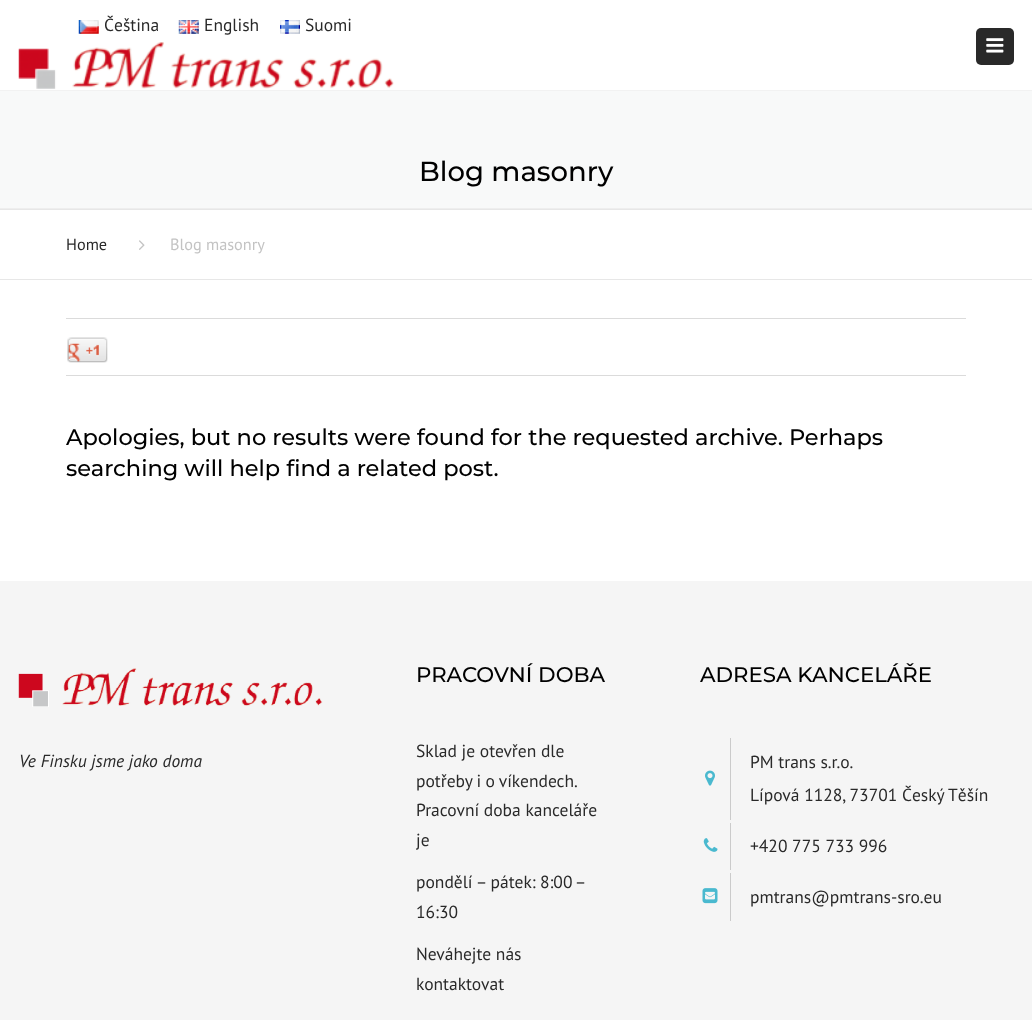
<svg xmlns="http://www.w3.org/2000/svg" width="1032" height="1020">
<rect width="100%" height="100%" fill="#fff"/>
<image x="78" y="20" width="21" height="14" href="media/1.png"/>
<text x="104" y="31" style="font-family:PT Sans;font-size:17.5px;fill:#292929">Čeština</text>
<image x="178" y="20" width="21" height="14" href="media/2.png"/>
<text x="204" y="31" style="font-family:PT Sans;font-size:17.5px;fill:#292929">English</text>
<image x="280" y="20" width="20" height="14" href="media/3.png"/>
<text x="305" y="31" style="font-family:PT Sans;font-size:17.5px;fill:#292929">Suomi</text>
<image x="18" y="42" width="376" height="47" href="media/4.png"/>
<rect y="90" width="1032" height="1" fill="#f2f2f2"/>
<rect x="976" y="28" width="38" height="37" rx="5" fill="#292929"/>
<image x="986" y="38" width="18" height="15" href="media/5.png"/>
<rect y="91" width="1032" height="117" fill="#f8f9f9"/>
<rect y="208" width="1032" height="1" fill="#eee"/>
<text x="419" y="181" style="font-family:Montserrat;font-size:27.5px;font-weight:500;fill:#000">Blog masonry</text>
<rect y="209" width="1032" height="1" fill="#e7e7e7"/>
<rect y="279" width="1032" height="1" fill="#e7e7e7"/>
<text x="66" y="250" style="font-family:PT Sans;font-size:16.25px;fill:#292929">Home</text>
<image x="139" y="240" width="6" height="10" href="media/6.png"/>
<text x="170" y="250" style="font-family:PT Sans;font-size:16.25px;fill:#c3c3c3">Blog masonry</text>
<rect x="66" y="318" width="900" height="1" fill="#dbdbdb"/>
<rect x="66" y="375" width="900" height="1" fill="#dbdbdb"/>
<image x="67" y="337" width="41" height="26" href="media/7.png"/>
<text x="66" y="445" style="font-family:Montserrat;font-size:22.5px;font-weight:500;fill:#000">Apologies, but no results were found for the requested archive. Perhaps</text>
<text x="66" y="476" style="font-family:Montserrat;font-size:22.5px;font-weight:500;fill:#000">searching will help find a related post.</text>
<rect y="581" width="1032" height="439" fill="#f5f5f5"/>
<image x="18" y="668" width="305" height="39" href="media/8.png"/>
<text x="19" y="767" style="font-family:PT Sans;font-size:17.5px;font-style:italic;fill:#292929">Ve Finsku jsme jako doma</text>
<text x="416" y="682" style="font-family:Montserrat;font-size:21.25px;font-weight:500;fill:#000">PRACOVNÍ DOBA</text>
<text x="416" y="757" style="font-family:PT Sans;font-size:17.5px;fill:#292929">Sklad je otevřen dle</text>
<text x="416" y="787" word-spacing="-0.5" style="font-family:PT Sans;font-size:17.5px;fill:#292929">potřeby i o víkendech.</text>
<text x="416" y="816" style="font-family:PT Sans;font-size:17.5px;fill:#292929">Pracovní doba kanceláře</text>
<text x="416" y="846" style="font-family:PT Sans;font-size:17.5px;fill:#292929">je</text>
<text x="416" y="888" style="font-family:PT Sans;font-size:17.5px;fill:#292929">pondělí – pátek:</text>
<text x="540" y="888" word-spacing="-1" style="font-family:PT Sans;font-size:17.5px;fill:#292929">8:00 –</text>
<text x="416" y="918" style="font-family:PT Sans;font-size:17.5px;fill:#292929">16:30</text>
<text x="416" y="960" style="font-family:PT Sans;font-size:17.5px;fill:#292929">Neváhejte nás</text>
<text x="416" y="990" style="font-family:PT Sans;font-size:17.5px;fill:#292929">kontaktovat</text>
<text x="700" y="682" style="font-family:Montserrat;font-size:21.25px;font-weight:500;fill:#000">ADRESA KANCELÁŘE</text>
<rect x="730" y="738" width="1" height="82" fill="#cbcbcb"/>
<text x="750" y="768" style="font-family:PT Sans;font-size:17.5px;fill:#292929">PM trans s.r.o.</text>
<image x="705" y="770" width="10" height="16" href="media/9.png"/>
<text x="750" y="801" style="font-family:PT Sans;font-size:17.5px;fill:#292929">Lípová 1128, 73701 Český Těšín</text>
<image x="703" y="838" width="15" height="14" href="media/10.png"/>
<rect x="730" y="823" width="1" height="47" fill="#cbcbcb"/>
<text x="750" y="852" style="font-family:PT Sans;font-size:17.5px;fill:#292929">+420 775 733 996</text>
<image x="702" y="888" width="16" height="16" href="media/11.png"/>
<rect x="730" y="873" width="1" height="48" fill="#cbcbcb"/>
<text x="750" y="903" style="font-family:PT Sans;font-size:17.5px;fill:#292929">pmtrans@pmtrans-sro.eu</text>
</svg>
